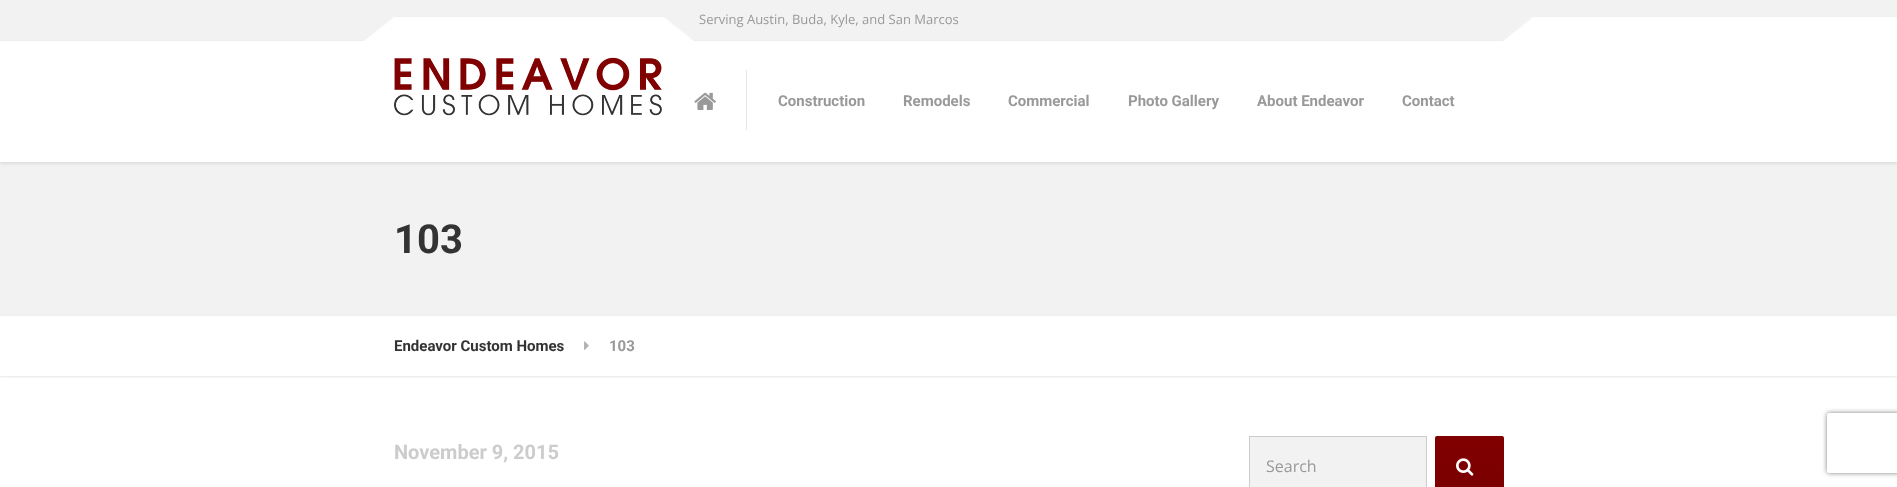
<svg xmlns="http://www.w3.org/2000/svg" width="1897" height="487">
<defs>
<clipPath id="clip1"><path d="M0 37h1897v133h-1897zm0 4h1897v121h-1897z" clip-rule="evenodd"/></clipPath>
<clipPath id="clip2"><rect x="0" y="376" width="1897" height="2"/></clipPath>
<linearGradient id="g1" gradientUnits="userSpaceOnUse" x1="1470" y1="438" x2="1470" y2="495"><stop offset="0" stop-color="#800000"/><stop offset="1" stop-color="#7b0000"/></linearGradient>
<clipPath id="clip3"><path d="M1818 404h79v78h-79zm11 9h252c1 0 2 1 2 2v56c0 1-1 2-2 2h-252c-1 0-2-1-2-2v-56c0-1 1-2 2-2z" clip-rule="evenodd"/></clipPath>
</defs>
<rect width="100%" height="100%" fill="#fff"/>
<rect width="1897" height="40" fill="#f2f2f2"/>
<rect y="40" width="1504" height="1" fill="#efefef"/>
<rect x="394" y="17" width="270" height="24" fill="#fff"/>
<rect x="394" y="16" width="270" height="1" fill="#efefef"/>
<text x="699" y="24" style="font-family:Open Sans;font-size:13px;fill:#999">Serving Austin, Buda, Kyle, and San Marcos</text>
<rect x="1533" y="17" width="364" height="23" fill="#fff"/>
<rect x="1533" y="16" width="364" height="1" fill="#efefef"/>
<path d="M1533 16l23 30l-30 24l-23-30z" fill="#fff"/>
<path d="M1533 16.5l.5 .5l-30 23.5l-.5-.5z" fill="#efefef"/>
<rect y="162" width="1897" height="153" fill="#f2f2f2"/>
<g clip-path="url(#clip1)">
<rect y="43" width="1897" height="121" fill="#dedede" filter="blur(1.5px)"/>
</g>
<path d="M394 16l23 30l-30 24l-23-30z" fill="#fff"/>
<path d="M394 16.5l.5 .5l-30 23.5l-.5-.5z" fill="#efefef"/>
<path d="M641 46l23-30l30 24l-23 30z" fill="#fff"/>
<path d="M663.5 17l.5-.5l30 23.5l-.5 .5z" fill="#efefef"/>
<image x="394" y="57" width="268" height="59" href="media/1.png"/>
<rect x="746" y="70" width="1" height="60" fill="#e6e6e6"/>
<image x="694" y="92" width="22" height="18" href="media/2.png"/>
<text x="778" y="106" style="font-family:Roboto;font-size:15px;font-weight:bold;fill:#999">Construction</text>
<text x="903" y="106" style="font-family:Roboto;font-size:15px;font-weight:bold;fill:#999">Remodels</text>
<text x="1008" y="106" style="font-family:Roboto;font-size:15px;font-weight:bold;fill:#999">Commercial</text>
<text x="1128" y="106" style="font-family:Roboto;font-size:15px;font-weight:bold;fill:#999">Photo Gallery</text>
<text x="1257" y="106" style="font-family:Roboto;font-size:15px;font-weight:bold;fill:#999">About Endeavor</text>
<text x="1402" y="106" style="font-family:Roboto;font-size:15px;font-weight:bold;fill:#999">Contact</text>
<rect y="315" width="1897" height="1" fill="#efefef"/>
<text x="394" y="253" style="font-family:Roboto;font-size:40px;font-weight:bold;fill:#333">103</text>
<g clip-path="url(#clip2)">
<rect y="317" width="1897" height="60" fill="#0000001a" filter="blur(1px)"/>
</g>
<text x="394" y="351" style="font-family:Roboto;font-size:15px;font-weight:bold;fill:#333">Endeavor Custom Homes</text>
<image x="584" y="341" width="5" height="9" href="media/3.png"/>
<text x="609" y="351" style="font-family:Roboto;font-size:15px;font-weight:bold;fill:#999">103</text>
<text x="394" y="459" style="font-family:Roboto;font-size:20px;font-weight:bold;fill:#ccc">November 9, 2015</text>
<rect x="1249.5" y="436.5" width="177" height="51" fill="#f2f2f2" stroke="#ccc"/>
<text x="1266" y="472" style="font-family:Open Sans;font-size:16px;fill:#999">Search</text>
<rect x="1437" y="438" width="65" height="49" fill="url(#g1)"/>
<rect x="1436" y="437" width="67" height="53" rx="1" fill="none" stroke="#800000" stroke-width="2"/>
<image x="1456" y="458" width="18" height="18" href="media/4.png"/>
<g clip-path="url(#clip3)">
<rect x="1827" y="413" width="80" height="60" rx="2" fill="#808080" filter="blur(2.5px)"/>
</g>
</svg>
